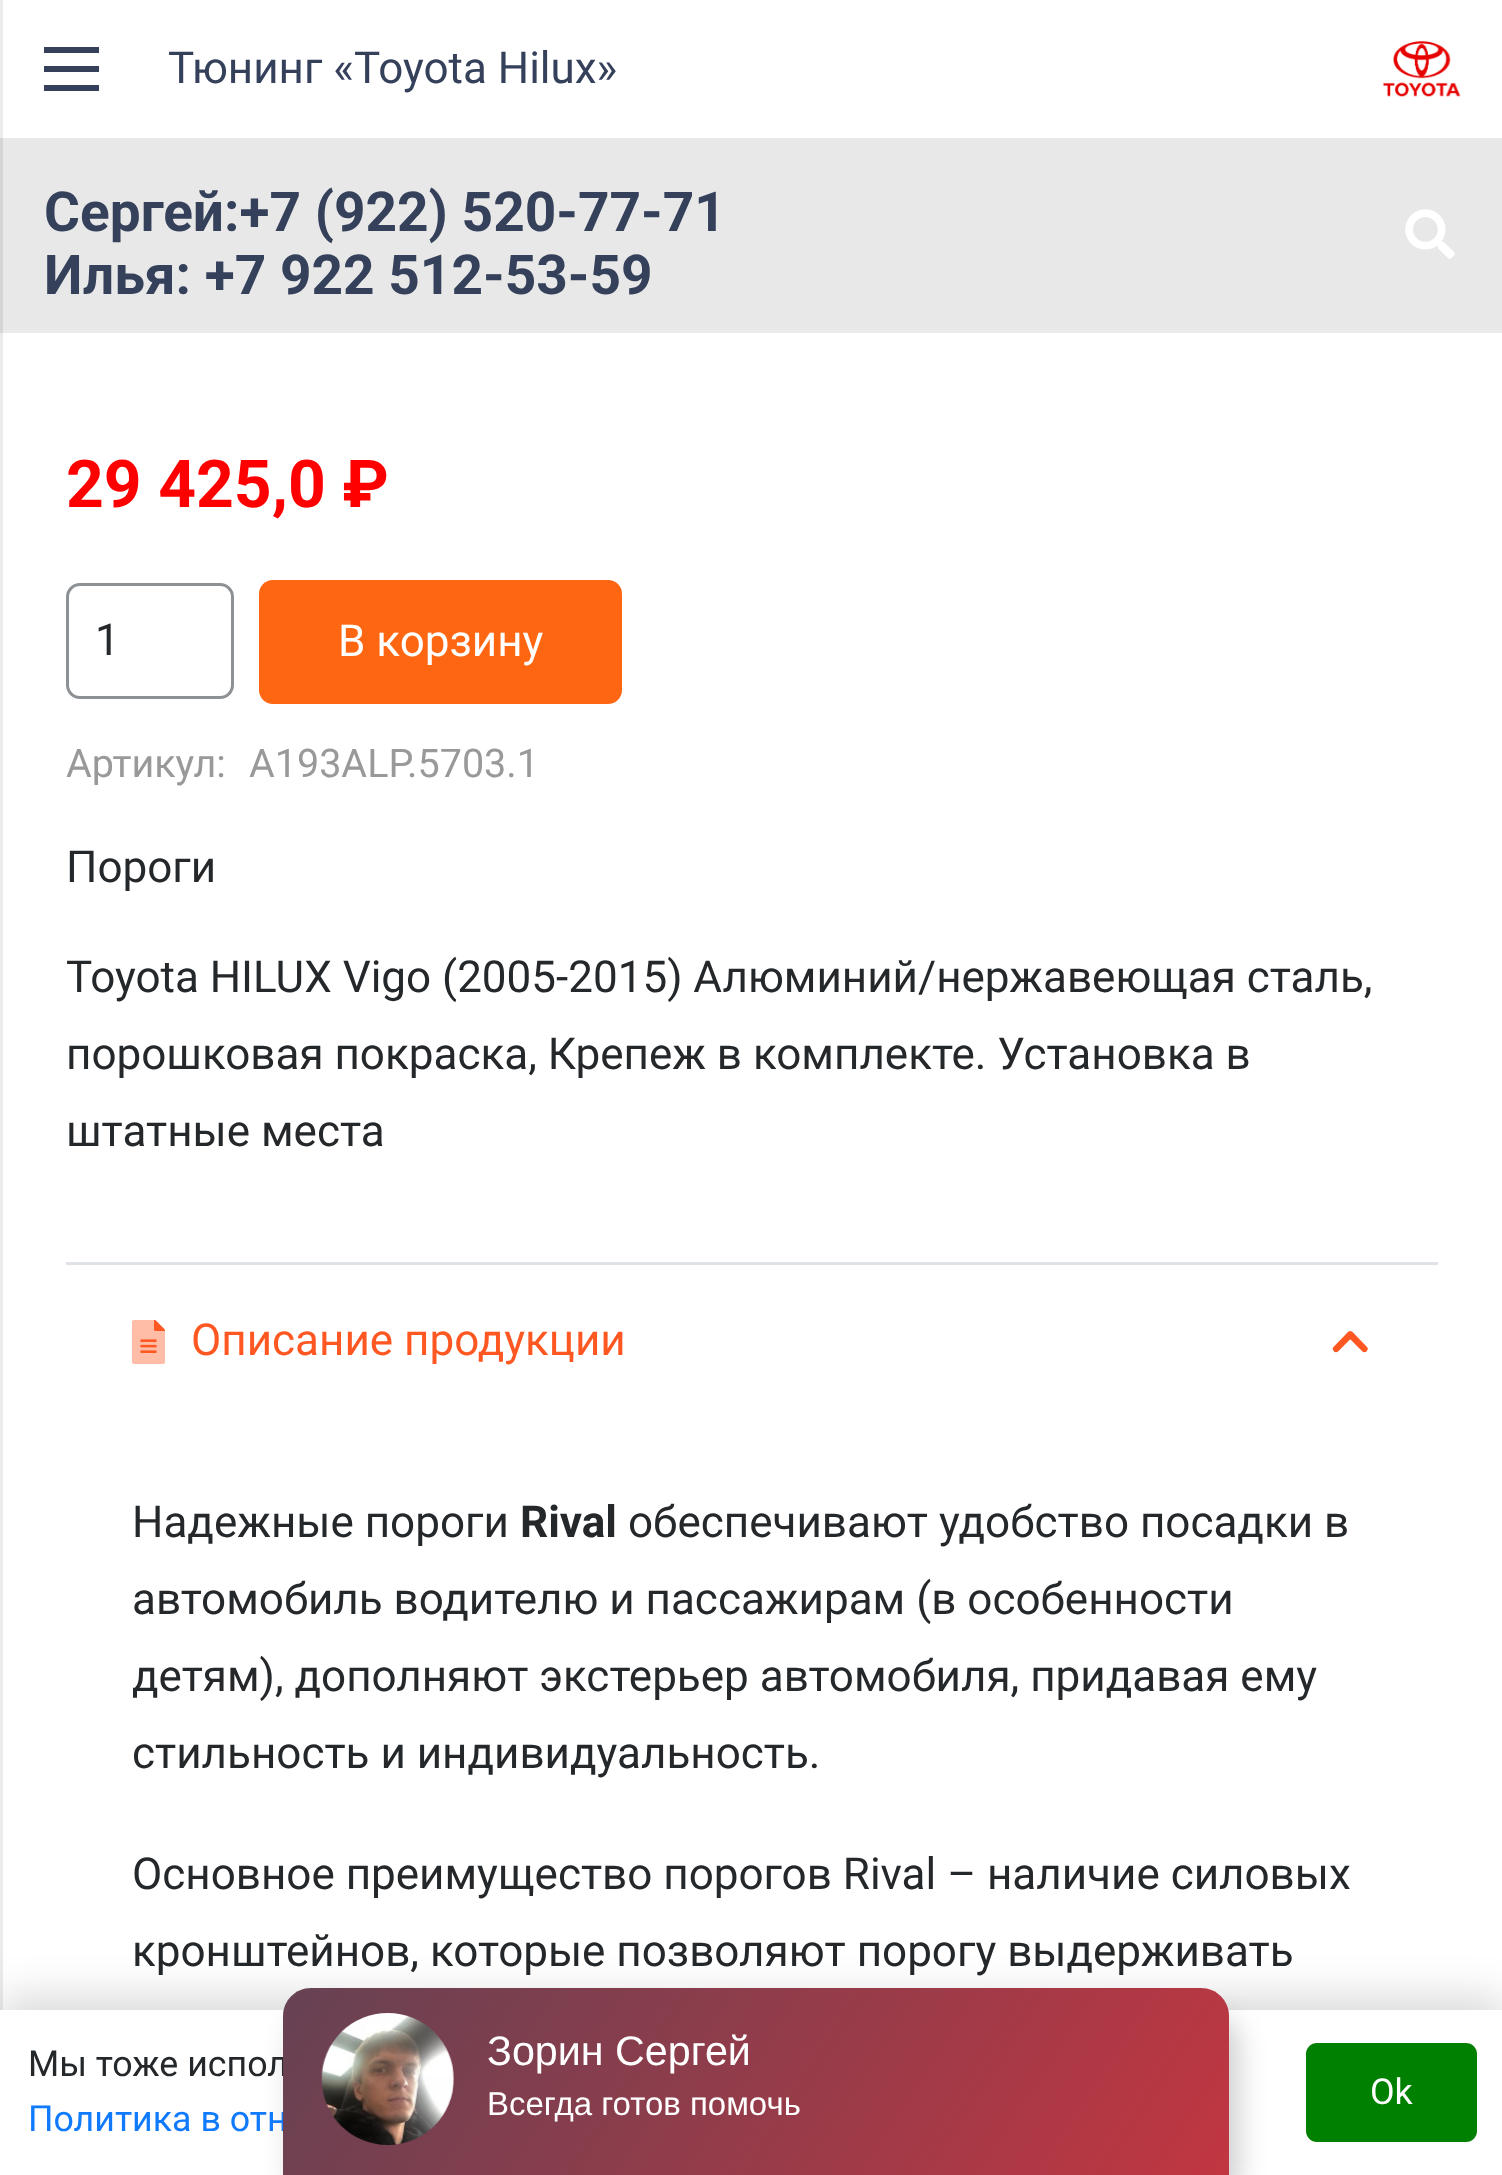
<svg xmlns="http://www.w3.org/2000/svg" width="1502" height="2175">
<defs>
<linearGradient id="g1" gradientUnits="userSpaceOnUse" x1="1132" y1="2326" x2="381" y2="1838"><stop offset="0" stop-color="#c13641"/><stop offset="1" stop-color="#664253"/></linearGradient>
</defs>
<rect width="100%" height="100%" fill="#fff"/>
<rect y="330" width="1502" height="3" fill="#ebebeb"/>
<rect y="138" width="1502" height="192" fill="#e8e8e8"/>
<rect width="3" height="2010" fill="#00000014"/>
<rect x="44" y="66" width="55" height="6" fill="#35415b"/>
<rect x="44" y="47" width="55" height="6" fill="#35415b"/>
<rect x="44" y="85" width="55" height="6" fill="#35415b"/>
<text x="168" y="83" style="font-family:Roboto;font-size:44px;fill:#35415b">Тюнинг «Toyota Hilux»</text>
<image x="1383" y="41" width="78" height="56" href="media/1.png"/>
<text x="44" y="231" style="font-family:Roboto;font-size:55px;font-weight:bold;fill:#35415b">Сергей:+7 (922) 520-77-71</text>
<text x="44" y="294" style="font-family:Roboto;font-size:55px;font-weight:bold;fill:#35415b">Илья: +7 922 512-53-59</text>
<image x="1405" y="209" width="50" height="50" href="media/2.png"/>
<text x="66" y="507" style="font-family:Roboto;font-size:66px;font-weight:bold;fill:#f00">29 425,0 ₽</text>
<rect x="67.5" y="584.5" width="165" height="113" rx="12.5" fill="none" stroke="#8e9194" stroke-width="3"/>
<text x="95" y="655" style="font-family:Roboto;font-size:44px;fill:#25282b">1</text>
<rect x="259" y="580" width="363" height="124" rx="14" fill="#f61"/>
<text x="338" y="656" style="font-family:Roboto;font-size:44px;fill:#fff">В корзину</text>
<text x="66" y="777" style="font-family:Roboto;font-size:39.5px;fill:#999">Артикул:</text>
<text x="249" y="777" style="font-family:Roboto;font-size:39.5px;fill:#999">A193ALP.5703.1</text>
<text x="66" y="882" style="font-family:Roboto;font-size:44px;fill:#25282b">Пороги</text>
<text x="66" y="992" style="font-family:Roboto;font-size:44px;fill:#25282b">Toyota HILUX Vigo (2005-2015) Алюминий/нержавеющая сталь,</text>
<text x="66" y="1069" style="font-family:Roboto;font-size:44px;fill:#25282b">порошковая покраска, Крепеж в комплекте. Установка в</text>
<text x="66" y="1146" style="font-family:Roboto;font-size:44px;fill:#25282b">штатные места</text>
<rect x="66" y="1262" width="1372" height="3" fill="#dfe2e6"/>
<image x="140" y="1320" width="25" height="33" href="media/4.png"/>
<image x="132" y="1320" width="33" height="44" href="media/3.png"/>
<text x="191" y="1355" style="font-family:Roboto;font-size:44px;fill:#ff5722">Описание продукции</text>
<path d="M1367 1350.5l-.5 1c-1 1-3 1-4 0l-15-15c-1-1-1-2.5 0-3.5l1-1c1-1 3-1 4 0l14.5 15c1 1 1 2.5 0 3.5z" fill="#ff5722"/>
<path d="M1334 1351.5l-.5-1c-1-1-1-2.5 0-3.5l14.5-15c1-1 3-1 4 0l1 1c1 1 1 2.5 0 3.5l-15 15c-1 1-3 1-4 0z" fill="#ff5722"/>
<text x="132" y="1537" style="font-family:Roboto;font-size:44px;fill:#25282b">Надежные пороги</text>
<text x="520" y="1537" style="font-family:Roboto;font-size:44px;font-weight:bold;fill:#25282b">Rival</text>
<text x="628" y="1537" style="font-family:Roboto;font-size:44px;fill:#25282b">обеспечивают удобство посадки в</text>
<text x="132" y="1614" style="font-family:Roboto;font-size:44px;fill:#25282b">автомобиль водителю и пассажирам (в особенности</text>
<text x="132" y="1691" style="font-family:Roboto;font-size:44px;fill:#25282b">детям), дополняют экстерьер автомобиля, придавая ему</text>
<text x="132" y="1768" style="font-family:Roboto;font-size:44px;fill:#25282b">стильность и индивидуальность.</text>
<text x="132" y="1889" style="font-family:Roboto;font-size:44px;fill:#25282b">Основное преимущество порогов Rival – наличие силовых</text>
<text x="132" y="1966" style="font-family:Roboto;font-size:44px;fill:#25282b">кронштейнов, которые позволяют порогу выдерживать</text>
<rect y="1997" width="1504" height="165" fill="#00000026" filter="blur(20.5px)"/>
<rect y="2010" width="1502" height="165" fill="#fff"/>
<rect x="292" y="2016" width="946" height="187" rx="28" fill="#00000033" filter="blur(14px)"/>
<text x="28" y="2076" style="font-family:Roboto;font-size:35.75px;fill:#25282b">Мы тоже испол</text>
<text x="28" y="2131" style="font-family:Roboto;font-size:35.75px;fill:#0f7afc">Политика в отн</text>
<path d="M311 1988h890c15.5 0 28 12.5 28 28v159h-946v-159c0-15.5 12.5-28 28-28z" fill="url(#g1)"/>
<image x="321" y="2013" width="133" height="132" href="media/5.png"/>
<text x="487" y="2065" style="font-family:Liberation Sans;font-size:41.25px;fill:#fff">Зорин Сергей</text>
<text x="487" y="2115" style="font-family:Liberation Sans;font-size:33px;fill:#fff">Всегда готов помочь</text>
<rect x="1306" y="2043" width="171" height="99" rx="11" fill="#008000"/>
<text x="1370" y="2104" style="font-family:Roboto;font-size:35.75px;fill:#fff">Ok</text>
</svg>
